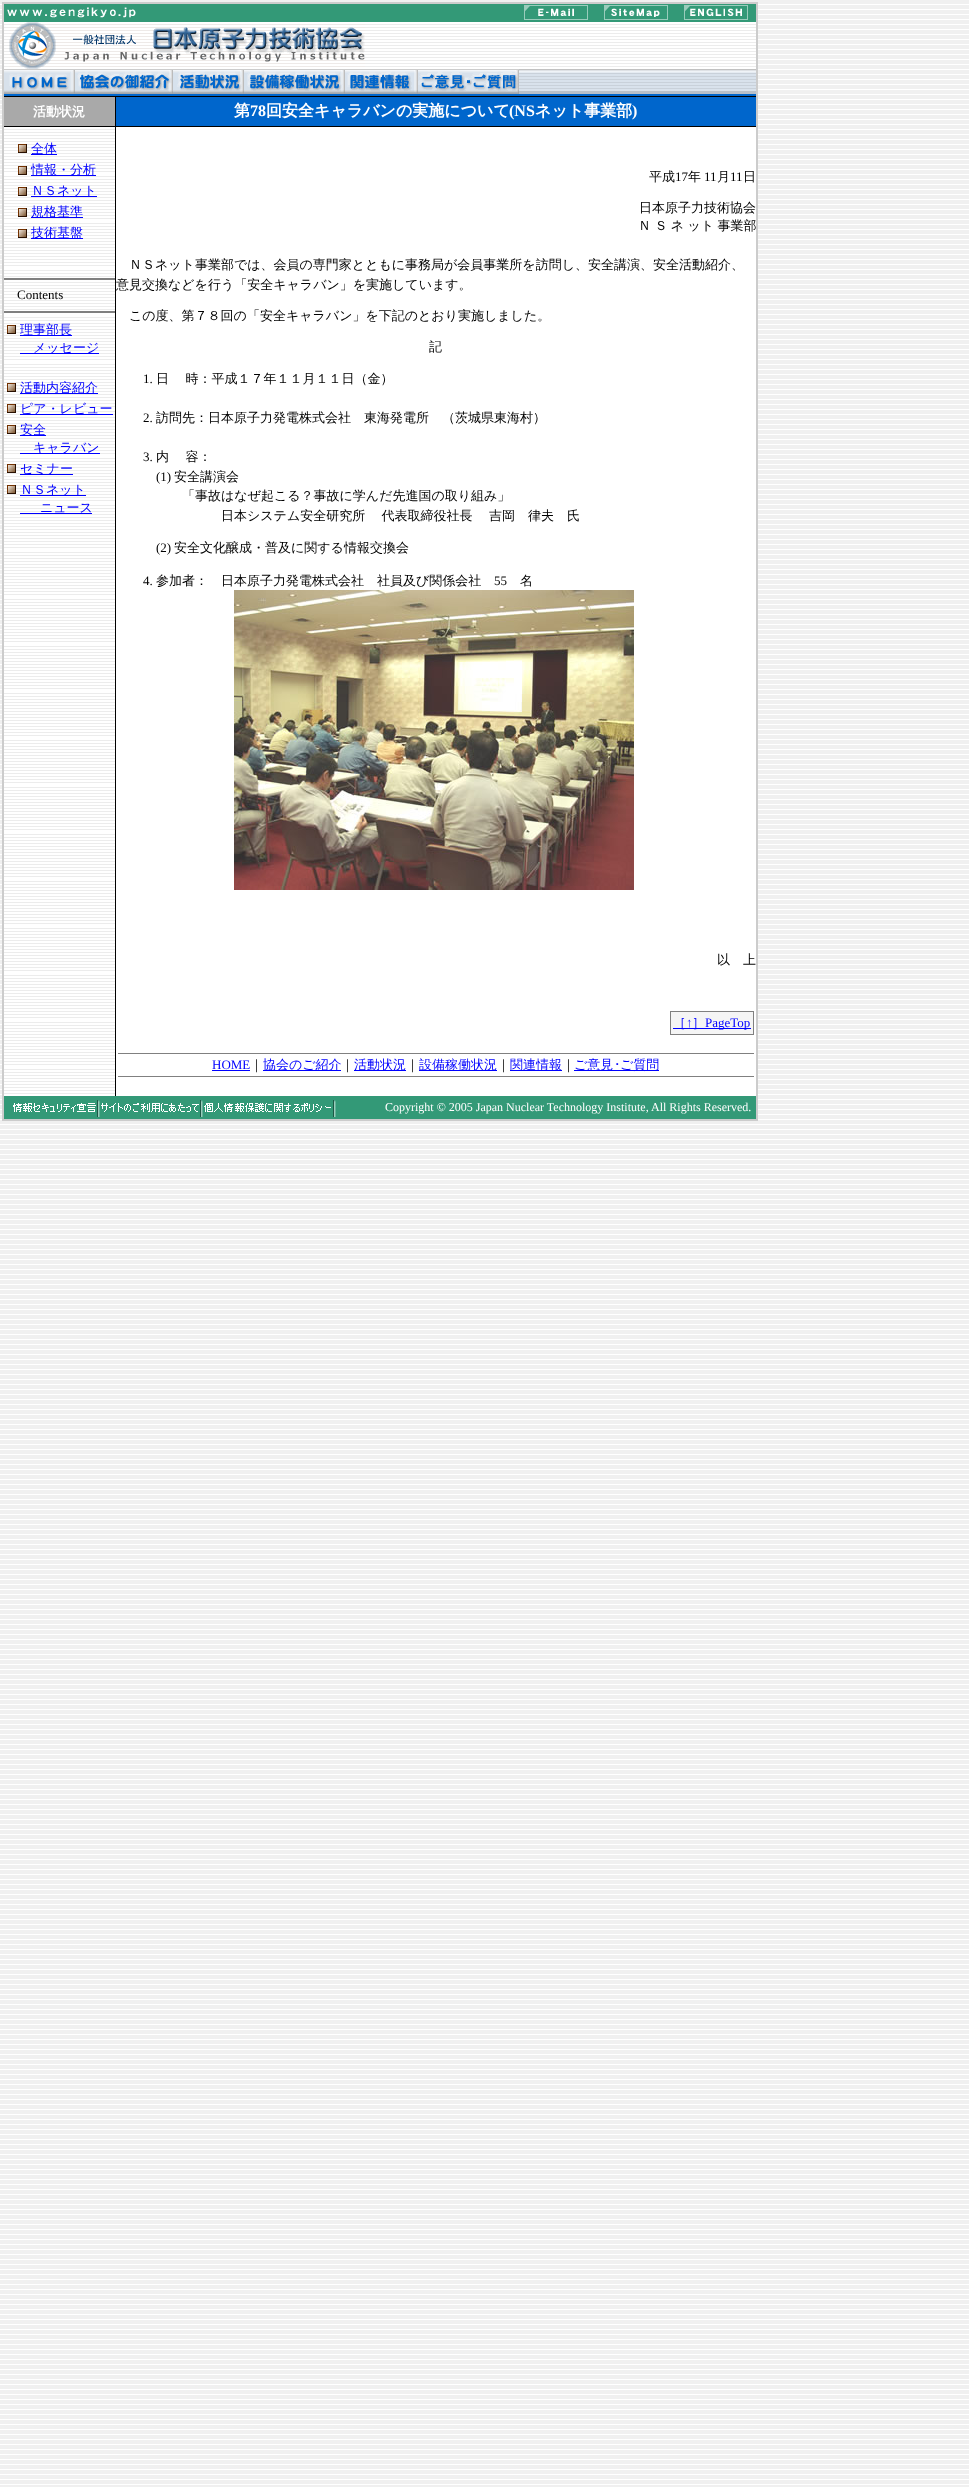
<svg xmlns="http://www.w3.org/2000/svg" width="969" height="2487">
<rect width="100%" height="100%" fill="#fff"/>
<image x="0" y="0" width="969" height="2487" href="media/1.png"/>
<rect x="4" y="22" width="752" height="1074" fill="#fff"/>
<rect x="2.5" y="2.5" width="755" height="1118" fill="none" stroke="#ccc"/>
<rect x="3.5" y="3.5" width="753" height="1116" fill="none" stroke="#ccc"/>
<rect x="4" y="4" width="752" height="18" fill="#397"/>
<image x="7" y="7" width="129" height="11" href="media/2.png"/>
<image x="524" y="5" width="64" height="15" href="media/3.png"/>
<image x="604" y="5" width="64" height="15" href="media/4.png"/>
<image x="684" y="5" width="64" height="15" href="media/5.png"/>
<image x="4" y="24" width="390" height="43" href="media/6.png"/>
<image x="9" y="22" width="356" height="47" href="media/7.png"/>
<image x="394" y="24" width="362" height="43" href="media/8.png"/>
<image x="4" y="69" width="752" height="27" href="media/9.png"/>
<image x="4" y="69" width="71" height="25" href="media/10.png"/>
<image x="75" y="69" width="97" height="25" href="media/11.png"/>
<image x="172" y="69" width="72" height="25" href="media/12.png"/>
<image x="244" y="69" width="100" height="25" href="media/13.png"/>
<image x="344" y="69" width="74" height="25" href="media/14.png"/>
<image x="418" y="69" width="101" height="25" href="media/15.png"/>
<rect x="4" y="96" width="752" height="1" fill="#000"/>
<rect x="4" y="97" width="111" height="29" fill="#a9a9a9"/>
<text x="33" y="116" style="font-family:WenQuanYi Zen Hei;font-size:13px;font-weight:bold;fill:#fff">活動状況</text>
<rect x="115" y="97" width="1" height="29" fill="#000"/>
<rect x="116" y="97" width="640" height="29" fill="#06c"/>
<text x="234" y="116" style="font-family:WenQuanYi Zen Hei;font-size:16px;font-weight:bold;fill:#fff">第</text>
<text x="250" y="116" style="font-family:Liberation Serif;font-size:16px;font-weight:bold;fill:#fff">78</text>
<text x="266" y="116" style="font-family:WenQuanYi Zen Hei;font-size:16px;font-weight:bold;fill:#fff">回安全キャラバンの実施について</text>
<text x="509" y="116" style="font-family:Liberation Serif;font-size:16px;font-weight:bold;fill:#fff">(NS</text>
<text x="535" y="116" style="font-family:WenQuanYi Zen Hei;font-size:16px;font-weight:bold;fill:#fff">ネット事業部</text>
<text x="632" y="116" style="font-family:Liberation Serif;font-size:16px;font-weight:bold;fill:#fff">)</text>
<rect x="4" y="126" width="752" height="1" fill="#000"/>
<image x="4" y="129" width="111" height="965" href="media/16.png"/>
<image x="18" y="144" width="9" height="9" href="media/17.png"/>
<rect x="31" y="154" width="26" height="1" fill="#00f"/>
<text x="31" y="153" style="font-family:WenQuanYi Zen Hei;font-size:13px;font-weight:500;fill:#00f">全体</text>
<image x="18" y="166" width="9" height="9" href="media/17.png"/>
<rect x="31" y="175" width="65" height="1" fill="#00f"/>
<text x="31" y="174" style="font-family:WenQuanYi Zen Hei;font-size:13px;font-weight:500;fill:#00f">情報・分析</text>
<image x="18" y="187" width="9" height="9" href="media/17.png"/>
<rect x="31" y="196" width="66" height="1" fill="#00f"/>
<text x="31" y="195" style="font-family:WenQuanYi Zen Hei;font-size:13px;font-weight:500;fill:#00f">ＮＳネット</text>
<image x="18" y="208" width="9" height="9" href="media/17.png"/>
<rect x="31" y="217" width="52" height="1" fill="#00f"/>
<text x="31" y="216" style="font-family:WenQuanYi Zen Hei;font-size:13px;font-weight:500;fill:#00f">規格基準</text>
<image x="18" y="229" width="9" height="9" href="media/17.png"/>
<rect x="31" y="238" width="52" height="1" fill="#00f"/>
<text x="31" y="237" style="font-family:WenQuanYi Zen Hei;font-size:13px;font-weight:500;fill:#00f">技術基盤</text>
<rect x="4" y="278" width="111" height="2" fill="#808080"/>
<text x="17" y="299" style="font-family:Liberation Serif;font-size:13px;fill:#000">Contents</text>
<rect x="4" y="311" width="111" height="2" fill="#808080"/>
<image x="7" y="325" width="9" height="9" href="media/17.png"/>
<rect x="20" y="335" width="52" height="1" fill="#00f"/>
<text x="20" y="334" style="font-family:WenQuanYi Zen Hei;font-size:13px;font-weight:500;fill:#00f">理事部長</text>
<rect x="20" y="353" width="79" height="1" fill="#00f"/>
<text x="33" y="352" style="font-family:WenQuanYi Zen Hei;font-size:13px;font-weight:500;fill:#00f">メッセージ</text>
<image x="7" y="383" width="9" height="9" href="media/17.png"/>
<rect x="20" y="393" width="78" height="1" fill="#00f"/>
<text x="20" y="392" style="font-family:WenQuanYi Zen Hei;font-size:13px;font-weight:500;fill:#00f">活動内容紹介</text>
<image x="7" y="404" width="9" height="9" href="media/17.png"/>
<rect x="20" y="414" width="93" height="1" fill="#00f"/>
<text x="20" y="413" style="font-family:WenQuanYi Zen Hei;font-size:13px;font-weight:500;fill:#00f">ピア・レビュー</text>
<image x="7" y="425" width="9" height="9" href="media/17.png"/>
<rect x="20" y="435" width="26" height="1" fill="#00f"/>
<text x="20" y="434" style="font-family:WenQuanYi Zen Hei;font-size:13px;font-weight:500;fill:#00f">安全</text>
<rect x="20" y="453" width="80" height="1" fill="#00f"/>
<text x="33" y="452" style="font-family:WenQuanYi Zen Hei;font-size:13px;font-weight:500;fill:#00f">キャラバン</text>
<image x="7" y="464" width="9" height="9" href="media/17.png"/>
<rect x="20" y="474" width="53" height="1" fill="#00f"/>
<text x="20" y="473" style="font-family:WenQuanYi Zen Hei;font-size:13px;font-weight:500;fill:#00f">セミナー</text>
<image x="7" y="485" width="9" height="9" href="media/17.png"/>
<rect x="20" y="495" width="66" height="1" fill="#00f"/>
<text x="20" y="494" style="font-family:WenQuanYi Zen Hei;font-size:13px;font-weight:500;fill:#00f">ＮＳネット</text>
<text x="40" y="512" style="font-family:WenQuanYi Zen Hei;font-size:13px;font-weight:500;fill:#00f">ニュース</text>
<rect x="20" y="513" width="72" height="1" fill="#00f"/>
<rect x="115" y="127" width="1" height="969" fill="#000"/>
<text x="649" y="181" style="font-family:WenQuanYi Zen Hei;font-size:13px;font-weight:500;fill:#000">平成</text>
<text x="675" y="181" style="font-family:Liberation Serif;font-size:13px;fill:#000">17</text>
<text x="688" y="181" style="font-family:WenQuanYi Zen Hei;font-size:13px;font-weight:500;fill:#000">年</text>
<text x="704" y="181" style="font-family:Liberation Serif;font-size:13px;fill:#000">11</text>
<text x="717" y="181" style="font-family:WenQuanYi Zen Hei;font-size:13px;font-weight:500;fill:#000">月</text>
<text x="730" y="181" style="font-family:Liberation Serif;font-size:13px;fill:#000">11</text>
<text x="743" y="181" style="font-family:WenQuanYi Zen Hei;font-size:13px;font-weight:500;fill:#000">日</text>
<text x="639" y="212" style="font-family:WenQuanYi Zen Hei;font-size:13px;font-weight:500;fill:#000">日本原子力技術協会</text>
<text x="638" y="230" word-spacing="-0.5" style="font-family:WenQuanYi Zen Hei;font-size:13px;font-weight:500;fill:#000">Ｎ Ｓ ネ ット 事業部</text>
<text x="129" y="269" style="font-family:WenQuanYi Zen Hei;font-size:13px;font-weight:500;fill:#000">ＮＳネット事業部では、会員の専門家とともに事務局が会員事業所を訪問し、安全講演、安全活動紹介、</text>
<text x="116" y="289" style="font-family:WenQuanYi Zen Hei;font-size:13px;font-weight:500;fill:#000">意見交換などを行う「安全キャラバン」を実施しています。</text>
<text x="129" y="320" style="font-family:WenQuanYi Zen Hei;font-size:13px;font-weight:500;fill:#000">この度、第７８回の「安全キャラバン」を下記のとおり実施しました。</text>
<text x="429" y="351" style="font-family:WenQuanYi Zen Hei;font-size:13px;font-weight:500;fill:#000">記</text>
<text x="143" y="383" style="font-family:Liberation Serif;font-size:13px;fill:#000">1.</text>
<text x="156" y="383" word-spacing="-0.5" style="font-family:WenQuanYi Zen Hei;font-size:13px;font-weight:500;fill:#000">日　 時：平成１７年１１月１１日（金）</text>
<text x="143" y="422" style="font-family:Liberation Serif;font-size:13px;fill:#000">2.</text>
<text x="156" y="422" style="font-family:WenQuanYi Zen Hei;font-size:13px;font-weight:500;fill:#000">訪問先：日本原子力発電株式会社　東海発電所　（茨城県東海村）</text>
<text x="143" y="461" style="font-family:Liberation Serif;font-size:13px;fill:#000">3.</text>
<text x="156" y="461" word-spacing="-0.5" style="font-family:WenQuanYi Zen Hei;font-size:13px;font-weight:500;fill:#000">内　 容：</text>
<text x="156" y="481" style="font-family:Liberation Serif;font-size:13px;fill:#000">(1)</text>
<text x="174" y="481" style="font-family:WenQuanYi Zen Hei;font-size:13px;font-weight:500;fill:#000">安全講演会</text>
<text x="182" y="500" style="font-family:WenQuanYi Zen Hei;font-size:13px;font-weight:500;fill:#000">「事故はなぜ起こる？事故に学んだ先進国の取り組み」</text>
<text x="221" y="520" word-spacing="-0.5" style="font-family:WenQuanYi Zen Hei;font-size:13px;font-weight:500;fill:#000">日本システム安全研究所　 代表取締役社長　 吉岡　律夫　氏</text>
<text x="156" y="552" style="font-family:Liberation Serif;font-size:13px;fill:#000">(2)</text>
<text x="174" y="552" style="font-family:WenQuanYi Zen Hei;font-size:13px;font-weight:500;fill:#000">安全文化醸成・普及に関する情報交換会</text>
<text x="143" y="585" style="font-family:Liberation Serif;font-size:13px;fill:#000">4.</text>
<text x="156" y="585" style="font-family:WenQuanYi Zen Hei;font-size:13px;font-weight:500;fill:#000">参加者：　日本原子力発電株式会社　社員及び関係会社</text>
<text x="494" y="585" style="font-family:Liberation Serif;font-size:13px;fill:#000">55</text>
<text x="520" y="585" style="font-family:WenQuanYi Zen Hei;font-size:13px;font-weight:500;fill:#000">名</text>
<image x="234" y="590" width="400" height="300" href="media/18.png"/>
<text x="717" y="964" style="font-family:WenQuanYi Zen Hei;font-size:13px;font-weight:500;fill:#000">以　上</text>
<rect x="670" y="1011" width="84" height="24" fill="#808080"/>
<rect x="671" y="1012" width="82" height="22" fill="#f5f5f5"/>
<rect x="673" y="1028" width="78" height="1" fill="#00f"/>
<text x="673" y="1027" style="font-family:WenQuanYi Zen Hei;font-size:13px;font-weight:500;fill:#00f">［</text>
<text x="686" y="1027" style="font-family:Liberation Serif;font-size:13px;fill:#00f">↑</text>
<text x="692" y="1027" style="font-family:WenQuanYi Zen Hei;font-size:13px;font-weight:500;fill:#00f">］</text>
<text x="705" y="1027" style="font-family:Liberation Serif;font-size:13px;fill:#00f">PageTop</text>
<rect x="118" y="1053" width="636" height="1" fill="#808080"/>
<text x="212" y="1069" style="font-family:Liberation Serif;font-size:13px;fill:#00f">HOME</text>
<rect x="212" y="1070" width="38" height="1" fill="#00f"/>
<text x="250" y="1069" style="font-family:WenQuanYi Zen Hei;font-size:13px;font-weight:500;fill:#000">｜</text>
<rect x="263" y="1070" width="78" height="1" fill="#00f"/>
<text x="263" y="1069" style="font-family:WenQuanYi Zen Hei;font-size:13px;font-weight:500;fill:#00f">協会のご紹介</text>
<text x="341" y="1069" style="font-family:WenQuanYi Zen Hei;font-size:13px;font-weight:500;fill:#000">｜</text>
<rect x="354" y="1070" width="52" height="1" fill="#00f"/>
<text x="354" y="1069" style="font-family:WenQuanYi Zen Hei;font-size:13px;font-weight:500;fill:#00f">活動状況</text>
<text x="406" y="1069" style="font-family:WenQuanYi Zen Hei;font-size:13px;font-weight:500;fill:#000">｜</text>
<rect x="419" y="1070" width="78" height="1" fill="#00f"/>
<text x="419" y="1069" style="font-family:WenQuanYi Zen Hei;font-size:13px;font-weight:500;fill:#00f">設備稼働状況</text>
<text x="497" y="1069" style="font-family:WenQuanYi Zen Hei;font-size:13px;font-weight:500;fill:#000">｜</text>
<rect x="510" y="1070" width="52" height="1" fill="#00f"/>
<text x="510" y="1069" style="font-family:WenQuanYi Zen Hei;font-size:13px;font-weight:500;fill:#00f">関連情報</text>
<text x="562" y="1069" style="font-family:WenQuanYi Zen Hei;font-size:13px;font-weight:500;fill:#000">｜</text>
<rect x="574" y="1070" width="85" height="1" fill="#00f"/>
<text x="574" y="1069" style="font-family:WenQuanYi Zen Hei;font-size:13px;font-weight:500;fill:#00f">ご意見</text>
<text x="614" y="1069" style="font-family:IPAGothic;font-size:13px;fill:#00f">･</text>
<text x="620" y="1069" style="font-family:WenQuanYi Zen Hei;font-size:13px;font-weight:500;fill:#00f">ご質問</text>
<rect x="118" y="1076" width="636" height="1" fill="#808080"/>
<rect x="4" y="1096" width="752" height="23" fill="#397"/>
<image x="13" y="1100" width="87" height="17" href="media/19.png"/>
<image x="101" y="1100" width="102" height="17" href="media/20.png"/>
<image x="204" y="1100" width="132" height="17" href="media/21.png"/>
<text x="385" y="1111" style="font-family:Liberation Serif;font-size:12px;fill:#fff">Copyright © 2005 Japan Nuclear Technology Institute, All Rights Reserved.</text>
</svg>
